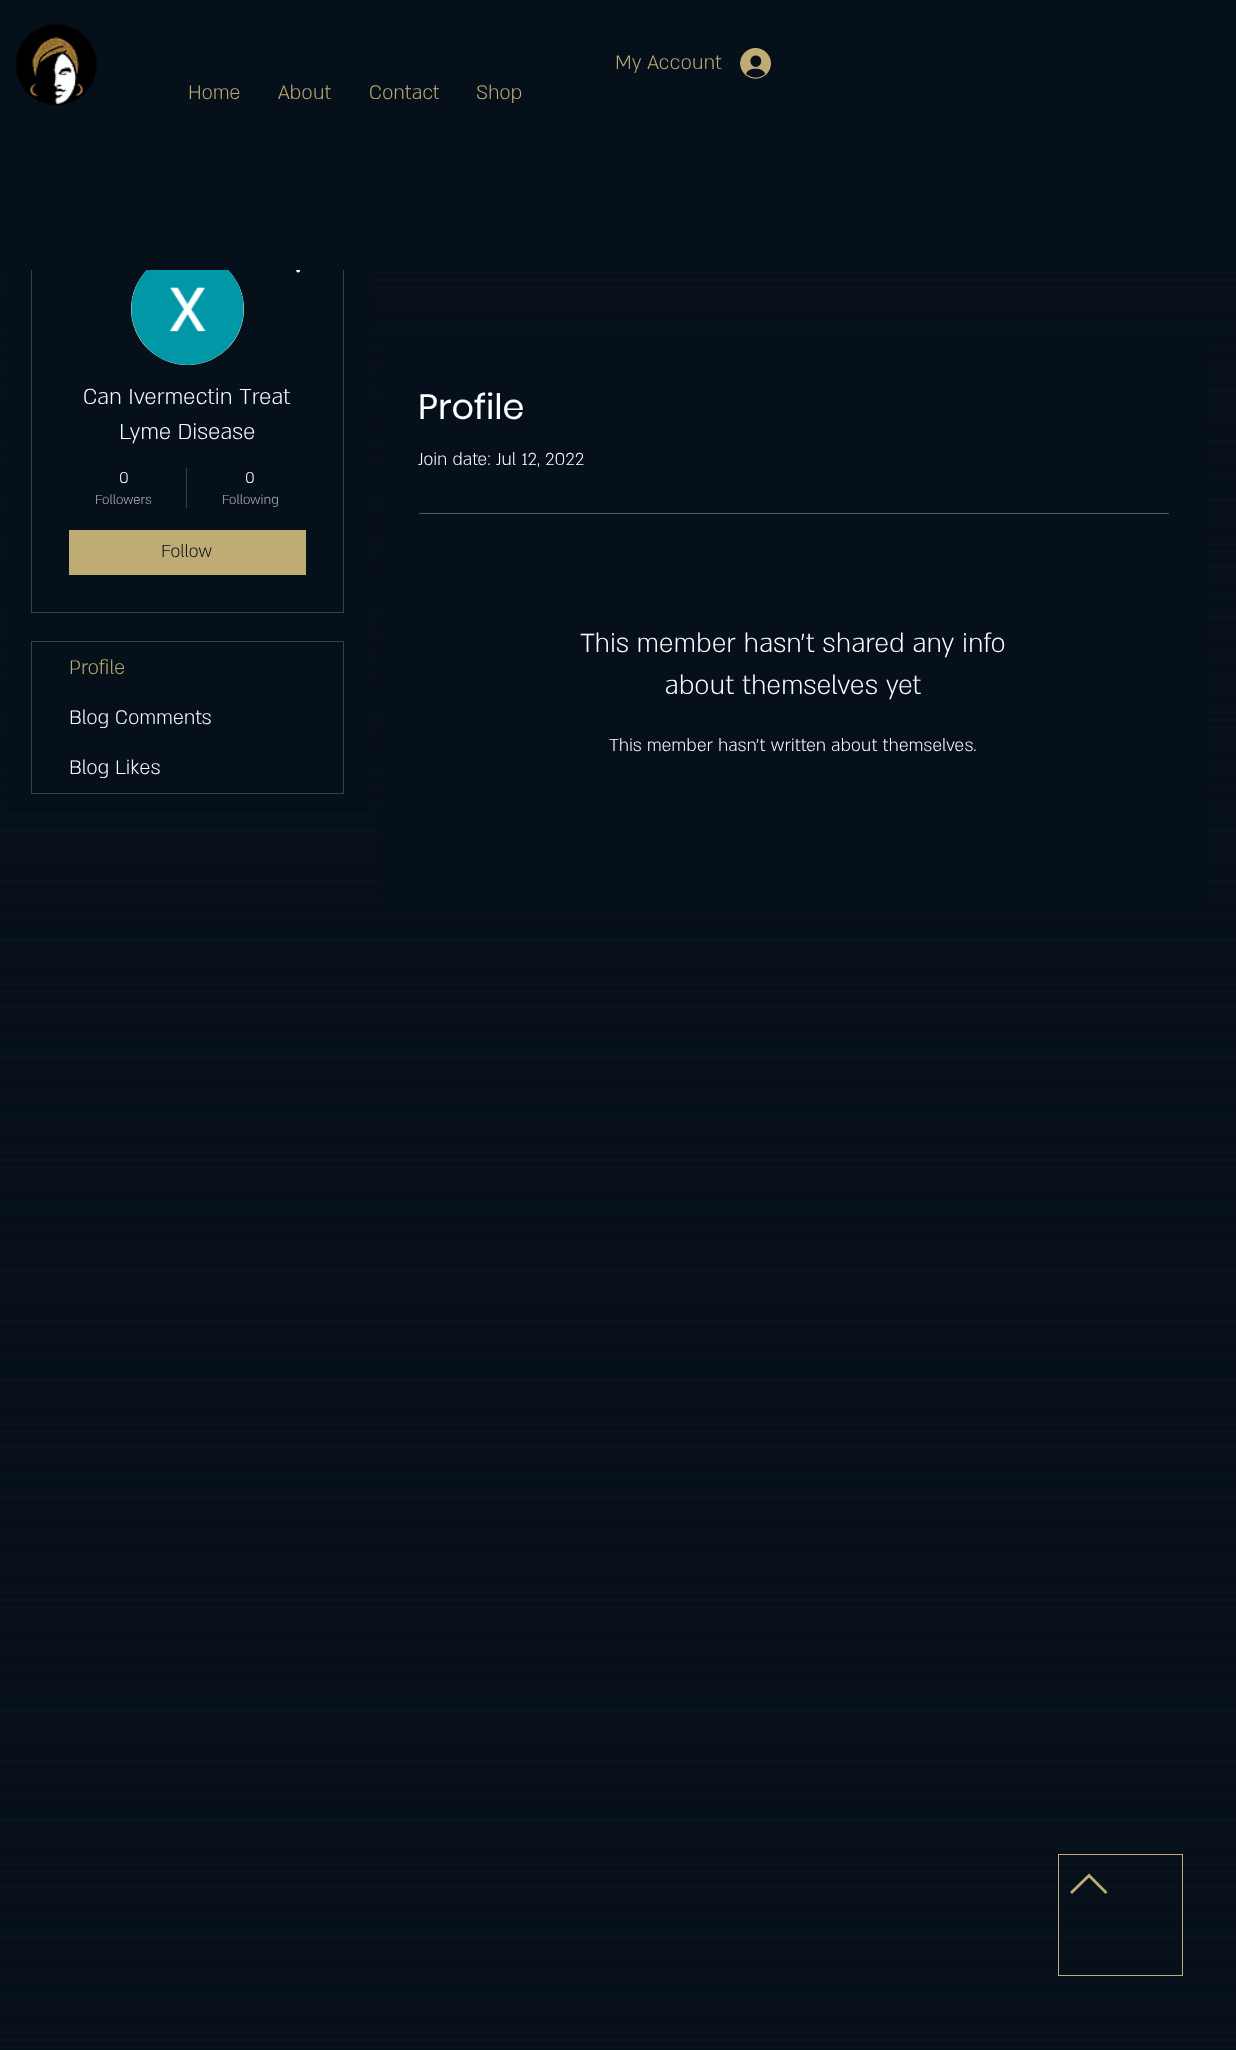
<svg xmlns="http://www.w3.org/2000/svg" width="1236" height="2050">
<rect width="100%" height="100%" fill="#06101b"/>
<image x="15" y="24" width="82" height="82" href="media/1.png"/>
<text x="615" y="69" style="font-family:'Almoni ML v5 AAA';font-size:22.5px;font-weight:300;fill:#beac74">My Account</text>
<image x="740" y="48" width="31" height="31" href="media/2.png"/>
<text x="188" y="99" style="font-family:'Almoni ML v5 AAA';font-size:22.5px;font-weight:300;fill:#beac74">Home</text>
<text x="278" y="99" style="font-family:'Almoni ML v5 AAA';font-size:22.5px;font-weight:300;fill:#beac74">About</text>
<text x="369" y="99" style="font-family:'Almoni ML v5 AAA';font-size:22.5px;font-weight:300;fill:#beac74">Contact</text>
<text x="476" y="99" style="font-family:'Almoni ML v5 AAA';font-size:22.5px;font-weight:300;fill:#beac74">Shop</text>
<image x="0" y="271" width="1236" height="1777" href="media/5.png"/>
<rect x="6" y="272" width="364" height="537" fill="#06101b"/>
<rect x="31.5" y="215.5" width="312" height="397" fill="none" stroke="#384049"/>
<rect x="131" y="253" width="113" height="112" rx="56" fill="#d8d8d8"/>
<rect x="31" y="215" width="313" height="55" fill="#06101b"/>
<image x="131" y="270" width="113" height="95" href="media/3.png"/>
<image x="296" y="270" width="4" height="3" href="media/4.png"/>
<text x="83" y="404" style="font-family:'Almoni ML v5 AAA';font-size:25px;font-weight:300;fill:#fff">Can Ivermectin Treat</text>
<text x="119" y="439" style="font-family:'Almoni ML v5 AAA';font-size:25px;font-weight:300;fill:#fff">Lyme Disease</text>
<text x="119" y="483" style="font-family:'Almoni ML v5 AAA';font-size:18px;font-weight:300;fill:#fff">0</text>
<text x="95" y="504" style="font-family:'Almoni ML v5 AAA';font-size:15px;font-weight:300;fill:#b4b7bb">Followers</text>
<rect x="186" y="468" width="1" height="40" fill="#384049"/>
<text x="245" y="483" style="font-family:'Almoni ML v5 AAA';font-size:18px;font-weight:300;fill:#fff">0</text>
<text x="222" y="504" style="font-family:'Almoni ML v5 AAA';font-size:15px;font-weight:300;fill:#b4b7bb">Following</text>
<rect x="69" y="530" width="237" height="45" fill="#beac74"/>
<text x="161" y="557" style="font-family:'Almoni ML v5 AAA';font-size:20px;font-weight:300;fill:#06101b">Follow</text>
<rect x="31.5" y="641.5" width="312" height="152" fill="none" stroke="#384049"/>
<text x="69" y="674" style="font-family:'Almoni ML v5 AAA';font-size:22.5px;font-weight:300;fill:#beac74">Profile</text>
<text x="69" y="724" style="font-family:'Almoni ML v5 AAA';font-size:22.5px;font-weight:300;fill:#fff">Blog Comments</text>
<text x="69" y="774" style="font-family:'Almoni ML v5 AAA';font-size:22.5px;font-weight:300;fill:#fff">Blog Likes</text>
<rect x="381" y="345" width="825" height="559" fill="#06101b"/>
<text x="418" y="419" style="font-family:Poppins;font-size:35px;fill:#fff">Profile</text>
<text x="418" y="465" style="font-family:'Almoni ML v5 AAA';font-size:20px;font-weight:300;fill:#fff">Join date: Jul 12, 2022</text>
<rect x="419" y="513" width="750" height="1" fill="#51585f"/>
<text x="580" y="652" style="font-family:'Almoni ML v5 AAA';font-size:30px;font-weight:300;fill:#fff">This member hasn't shared any info</text>
<text x="665" y="694" style="font-family:'Almoni ML v5 AAA';font-size:30px;font-weight:300;fill:#fff">about themselves yet</text>
<text x="609" y="751" style="font-family:'Almoni ML v5 AAA';font-size:20px;font-weight:300;fill:#fff">This member hasn't written about themselves.</text>
<rect x="1058.5" y="1854.5" width="124" height="121" fill="none" stroke="#beac74"/>
<path d="M1070 1892l2 2l17-16.5l16.5 16.5l2-2l-18.5-18.5z" fill="#beac74"/>
</svg>
